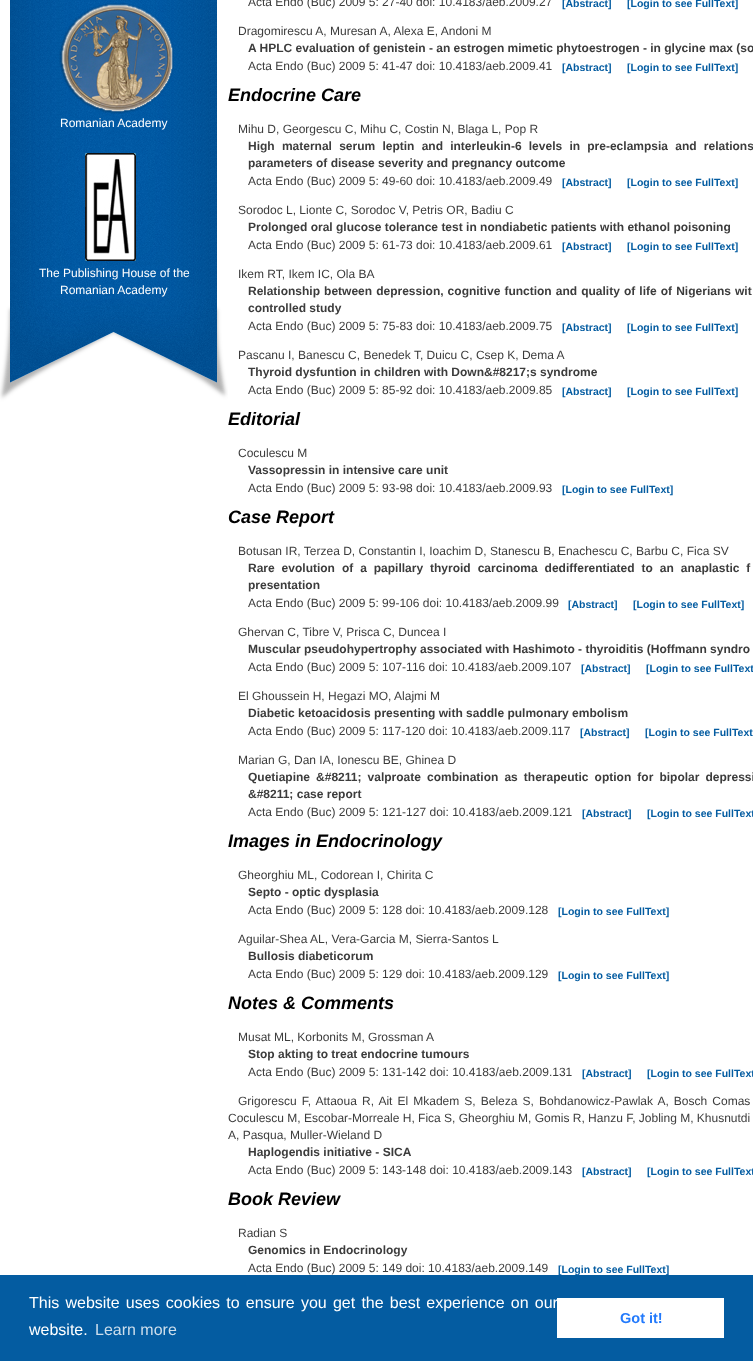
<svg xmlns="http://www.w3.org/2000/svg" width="753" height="1361">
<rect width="100%" height="100%" fill="#fff"/>
<image x="10" y="0" width="207" height="299" href="media/1.png"/>
<image x="59" y="3" width="115" height="111" href="media/2.png"/>
<text x="60" y="127" style="font-family:Liberation Sans;font-size:12px;fill:#fff">Romanian Academy</text>
<image x="58" y="149" width="106" height="116" href="media/3.png"/>
<text x="39" y="277" style="font-family:Liberation Sans;font-size:12px;fill:#fff">The Publishing House of the</text>
<text x="60" y="294" style="font-family:Liberation Sans;font-size:12px;fill:#fff">Romanian Academy</text>
<image x="0" y="299" width="228" height="104" href="media/4.png"/>
<text x="248" y="6" style="font-family:Liberation Sans;font-size:12px;fill:#3c3c3c">Acta Endo (Buc) 2009 5: 27-40 doi: 10.4183/aeb.2009.27</text>
<text x="562" y="7" style="font-family:Liberation Sans;font-size:10.5px;font-weight:bold;fill:#045ca1">[Abstract]</text>
<text x="627" y="7" style="font-family:Liberation Sans;font-size:10.5px;font-weight:bold;fill:#045ca1">[Login to see FullText]</text>
<text x="238" y="35" style="font-family:Liberation Sans;font-size:12px;fill:#3c3c3c">Dragomirescu A, Muresan A, Alexa E, Andoni M</text>
<text x="248" y="52" style="font-family:Liberation Sans;font-size:12px;font-weight:bold;fill:#3c3c3c">A HPLC evaluation of genistein - an estrogen mimetic phytoestrogen - in glycine max (so</text>
<text x="248" y="70" style="font-family:Liberation Sans;font-size:12px;fill:#3c3c3c">Acta Endo (Buc) 2009 5: 41-47 doi: 10.4183/aeb.2009.41</text>
<text x="562" y="71" style="font-family:Liberation Sans;font-size:10.5px;font-weight:bold;fill:#045ca1">[Abstract]</text>
<text x="627" y="71" style="font-family:Liberation Sans;font-size:10.5px;font-weight:bold;fill:#045ca1">[Login to see FullText]</text>
<text x="228" y="101" style="font-family:Liberation Sans;font-size:18px;font-weight:bold;font-style:italic;fill:#000">Endocrine Care</text>
<text x="238" y="133" style="font-family:Liberation Sans;font-size:12px;fill:#3c3c3c">Mihu D, Georgescu C, Mihu C, Costin N, Blaga L, Pop R</text>
<text x="248" y="150" word-spacing="3.9" style="font-family:Liberation Sans;font-size:12px;font-weight:bold;fill:#3c3c3c">High maternal serum leptin and interleukin-6 levels in pre-eclampsia and relations</text>
<text x="248" y="167" style="font-family:Liberation Sans;font-size:12px;font-weight:bold;fill:#3c3c3c">parameters of disease severity and pregnancy outcome</text>
<text x="248" y="185" style="font-family:Liberation Sans;font-size:12px;fill:#3c3c3c">Acta Endo (Buc) 2009 5: 49-60 doi: 10.4183/aeb.2009.49</text>
<text x="562" y="186" style="font-family:Liberation Sans;font-size:10.5px;font-weight:bold;fill:#045ca1">[Abstract]</text>
<text x="627" y="186" style="font-family:Liberation Sans;font-size:10.5px;font-weight:bold;fill:#045ca1">[Login to see FullText]</text>
<text x="238" y="214" style="font-family:Liberation Sans;font-size:12px;fill:#3c3c3c">Sorodoc L, Lionte C, Sorodoc V, Petris OR, Badiu C</text>
<text x="248" y="231" style="font-family:Liberation Sans;font-size:12px;font-weight:bold;fill:#3c3c3c">Prolonged oral glucose tolerance test in nondiabetic patients with ethanol poisoning</text>
<text x="248" y="249" style="font-family:Liberation Sans;font-size:12px;fill:#3c3c3c">Acta Endo (Buc) 2009 5: 61-73 doi: 10.4183/aeb.2009.61</text>
<text x="562" y="250" style="font-family:Liberation Sans;font-size:10.5px;font-weight:bold;fill:#045ca1">[Abstract]</text>
<text x="627" y="250" style="font-family:Liberation Sans;font-size:10.5px;font-weight:bold;fill:#045ca1">[Login to see FullText]</text>
<text x="238" y="278" style="font-family:Liberation Sans;font-size:12px;fill:#3c3c3c">Ikem RT, Ikem IC, Ola BA</text>
<text x="248" y="295" word-spacing="0.75" style="font-family:Liberation Sans;font-size:12px;font-weight:bold;fill:#3c3c3c">Relationship between depression, cognitive function and quality of life of Nigerians wit</text>
<text x="248" y="312" style="font-family:Liberation Sans;font-size:12px;font-weight:bold;fill:#3c3c3c">controlled study</text>
<text x="248" y="330" style="font-family:Liberation Sans;font-size:12px;fill:#3c3c3c">Acta Endo (Buc) 2009 5: 75-83 doi: 10.4183/aeb.2009.75</text>
<text x="562" y="331" style="font-family:Liberation Sans;font-size:10.5px;font-weight:bold;fill:#045ca1">[Abstract]</text>
<text x="627" y="331" style="font-family:Liberation Sans;font-size:10.5px;font-weight:bold;fill:#045ca1">[Login to see FullText]</text>
<text x="238" y="359" style="font-family:Liberation Sans;font-size:12px;fill:#3c3c3c">Pascanu I, Banescu C, Benedek T, Duicu C, Csep K, Dema A</text>
<text x="248" y="376" style="font-family:Liberation Sans;font-size:12px;font-weight:bold;fill:#3c3c3c">Thyroid dysfuntion in children with Down&amp;#8217;s syndrome</text>
<text x="248" y="394" style="font-family:Liberation Sans;font-size:12px;fill:#3c3c3c">Acta Endo (Buc) 2009 5: 85-92 doi: 10.4183/aeb.2009.85</text>
<text x="562" y="395" style="font-family:Liberation Sans;font-size:10.5px;font-weight:bold;fill:#045ca1">[Abstract]</text>
<text x="627" y="395" style="font-family:Liberation Sans;font-size:10.5px;font-weight:bold;fill:#045ca1">[Login to see FullText]</text>
<text x="228" y="425" style="font-family:Liberation Sans;font-size:18px;font-weight:bold;font-style:italic;fill:#000">Editorial</text>
<text x="238" y="457" style="font-family:Liberation Sans;font-size:12px;fill:#3c3c3c">Coculescu M</text>
<text x="248" y="474" style="font-family:Liberation Sans;font-size:12px;font-weight:bold;fill:#3c3c3c">Vassopressin in intensive care unit</text>
<text x="248" y="492" style="font-family:Liberation Sans;font-size:12px;fill:#3c3c3c">Acta Endo (Buc) 2009 5: 93-98 doi: 10.4183/aeb.2009.93</text>
<text x="562" y="493" style="font-family:Liberation Sans;font-size:10.5px;font-weight:bold;fill:#045ca1">[Login to see FullText]</text>
<text x="228" y="523" style="font-family:Liberation Sans;font-size:18px;font-weight:bold;font-style:italic;fill:#000">Case Report</text>
<text x="238" y="555" style="font-family:Liberation Sans;font-size:12px;fill:#3c3c3c">Botusan IR, Terzea D, Constantin I, Ioachim D, Stanescu B, Enachescu C, Barbu C, Fica SV</text>
<text x="248" y="572" word-spacing="3.6" style="font-family:Liberation Sans;font-size:12px;font-weight:bold;fill:#3c3c3c">Rare evolution of a papillary thyroid carcinoma dedifferentiated to an anaplastic f</text>
<text x="248" y="589" style="font-family:Liberation Sans;font-size:12px;font-weight:bold;fill:#3c3c3c">presentation</text>
<text x="248" y="607" style="font-family:Liberation Sans;font-size:12px;fill:#3c3c3c">Acta Endo (Buc) 2009 5: 99-106 doi: 10.4183/aeb.2009.99</text>
<text x="568" y="608" style="font-family:Liberation Sans;font-size:10.5px;font-weight:bold;fill:#045ca1">[Abstract]</text>
<text x="633" y="608" style="font-family:Liberation Sans;font-size:10.5px;font-weight:bold;fill:#045ca1">[Login to see FullText]</text>
<text x="238" y="636" style="font-family:Liberation Sans;font-size:12px;fill:#3c3c3c">Ghervan C, Tibre V, Prisca C, Duncea I</text>
<text x="248" y="653" style="font-family:Liberation Sans;font-size:12px;font-weight:bold;fill:#3c3c3c">Muscular pseudohypertrophy associated with Hashimoto - thyroiditis (Hoffmann syndro</text>
<text x="248" y="671" style="font-family:Liberation Sans;font-size:12px;fill:#3c3c3c">Acta Endo (Buc) 2009 5: 107-116 doi: 10.4183/aeb.2009.107</text>
<text x="581" y="672" style="font-family:Liberation Sans;font-size:10.5px;font-weight:bold;fill:#045ca1">[Abstract]</text>
<text x="646" y="672" style="font-family:Liberation Sans;font-size:10.5px;font-weight:bold;fill:#045ca1">[Login to see FullText</text>
<text x="238" y="700" style="font-family:Liberation Sans;font-size:12px;fill:#3c3c3c">El Ghoussein H, Hegazi MO, Alajmi M</text>
<text x="248" y="717" style="font-family:Liberation Sans;font-size:12px;font-weight:bold;fill:#3c3c3c">Diabetic ketoacidosis presenting with saddle pulmonary embolism</text>
<text x="248" y="735" style="font-family:Liberation Sans;font-size:12px;fill:#3c3c3c">Acta Endo (Buc) 2009 5: 117-120 doi: 10.4183/aeb.2009.117</text>
<text x="580" y="736" style="font-family:Liberation Sans;font-size:10.5px;font-weight:bold;fill:#045ca1">[Abstract]</text>
<text x="645" y="736" style="font-family:Liberation Sans;font-size:10.5px;font-weight:bold;fill:#045ca1">[Login to see FullText</text>
<text x="238" y="764" style="font-family:Liberation Sans;font-size:12px;fill:#3c3c3c">Marian G, Dan IA, Ionescu BE, Ghinea D</text>
<text x="248" y="781" word-spacing="2.75" style="font-family:Liberation Sans;font-size:12px;font-weight:bold;fill:#3c3c3c">Quetiapine &amp;#8211; valproate combination as therapeutic option for bipolar depressi</text>
<text x="248" y="798" style="font-family:Liberation Sans;font-size:12px;font-weight:bold;fill:#3c3c3c">&amp;#8211; case report</text>
<text x="248" y="816" style="font-family:Liberation Sans;font-size:12px;fill:#3c3c3c">Acta Endo (Buc) 2009 5: 121-127 doi: 10.4183/aeb.2009.121</text>
<text x="582" y="817" style="font-family:Liberation Sans;font-size:10.5px;font-weight:bold;fill:#045ca1">[Abstract]</text>
<text x="647" y="817" style="font-family:Liberation Sans;font-size:10.5px;font-weight:bold;fill:#045ca1">[Login to see FullText</text>
<text x="228" y="847" style="font-family:Liberation Sans;font-size:18px;font-weight:bold;font-style:italic;fill:#000">Images in Endocrinology</text>
<text x="238" y="879" style="font-family:Liberation Sans;font-size:12px;fill:#3c3c3c">Gheorghiu ML, Codorean I, Chirita C</text>
<text x="248" y="896" style="font-family:Liberation Sans;font-size:12px;font-weight:bold;fill:#3c3c3c">Septo - optic dysplasia</text>
<text x="248" y="914" style="font-family:Liberation Sans;font-size:12px;fill:#3c3c3c">Acta Endo (Buc) 2009 5: 128 doi: 10.4183/aeb.2009.128</text>
<text x="558" y="915" style="font-family:Liberation Sans;font-size:10.5px;font-weight:bold;fill:#045ca1">[Login to see FullText]</text>
<text x="238" y="943" style="font-family:Liberation Sans;font-size:12px;fill:#3c3c3c">Aguilar-Shea AL, Vera-Garcia M, Sierra-Santos L</text>
<text x="248" y="960" style="font-family:Liberation Sans;font-size:12px;font-weight:bold;fill:#3c3c3c">Bullosis diabeticorum</text>
<text x="248" y="978" style="font-family:Liberation Sans;font-size:12px;fill:#3c3c3c">Acta Endo (Buc) 2009 5: 129 doi: 10.4183/aeb.2009.129</text>
<text x="558" y="979" style="font-family:Liberation Sans;font-size:10.5px;font-weight:bold;fill:#045ca1">[Login to see FullText]</text>
<text x="228" y="1009" style="font-family:Liberation Sans;font-size:18px;font-weight:bold;font-style:italic;fill:#000">Notes &amp; Comments</text>
<text x="238" y="1041" style="font-family:Liberation Sans;font-size:12px;fill:#3c3c3c">Musat ML, Korbonits M, Grossman A</text>
<text x="248" y="1058" style="font-family:Liberation Sans;font-size:12px;font-weight:bold;fill:#3c3c3c">Stop akting to treat endocrine tumours</text>
<text x="248" y="1076" style="font-family:Liberation Sans;font-size:12px;fill:#3c3c3c">Acta Endo (Buc) 2009 5: 131-142 doi: 10.4183/aeb.2009.131</text>
<text x="582" y="1077" style="font-family:Liberation Sans;font-size:10.5px;font-weight:bold;fill:#045ca1">[Abstract]</text>
<text x="647" y="1077" style="font-family:Liberation Sans;font-size:10.5px;font-weight:bold;fill:#045ca1">[Login to see FullText</text>
<text x="238" y="1105" word-spacing="1.75" style="font-family:Liberation Sans;font-size:12px;fill:#3c3c3c">Grigorescu F, Attaoua R, Ait El Mkadem S, Beleza S, Bohdanowicz-Pawlak A, Bosch Comas</text>
<text x="228" y="1122" style="font-family:Liberation Sans;font-size:12px;fill:#3c3c3c">Coculescu M, Escobar-Morreale H, Fica S, Gheorghiu M, Gomis R, Hanzu F, Jobling M, Khusnutdi</text>
<text x="228" y="1139" style="font-family:Liberation Sans;font-size:12px;fill:#3c3c3c">A, Pasqua, Muller-Wieland D</text>
<text x="248" y="1156" style="font-family:Liberation Sans;font-size:12px;font-weight:bold;fill:#3c3c3c">Haplogendis initiative - SICA</text>
<text x="248" y="1174" style="font-family:Liberation Sans;font-size:12px;fill:#3c3c3c">Acta Endo (Buc) 2009 5: 143-148 doi: 10.4183/aeb.2009.143</text>
<text x="582" y="1175" style="font-family:Liberation Sans;font-size:10.5px;font-weight:bold;fill:#045ca1">[Abstract]</text>
<text x="647" y="1175" style="font-family:Liberation Sans;font-size:10.5px;font-weight:bold;fill:#045ca1">[Login to see FullText</text>
<text x="228" y="1205" style="font-family:Liberation Sans;font-size:18px;font-weight:bold;font-style:italic;fill:#000">Book Review</text>
<text x="238" y="1237" style="font-family:Liberation Sans;font-size:12px;fill:#3c3c3c">Radian S</text>
<text x="248" y="1254" style="font-family:Liberation Sans;font-size:12px;font-weight:bold;fill:#3c3c3c">Genomics in Endocrinology</text>
<text x="248" y="1272" style="font-family:Liberation Sans;font-size:12px;fill:#3c3c3c">Acta Endo (Buc) 2009 5: 149 doi: 10.4183/aeb.2009.149</text>
<text x="558" y="1273" style="font-family:Liberation Sans;font-size:10.5px;font-weight:bold;fill:#045ca1">[Login to see FullText]</text>
<rect y="1275" width="753" height="86" fill="#045ca1"/>
<text x="29" y="1308" word-spacing="1.75" style="font-family:Liberation Sans;font-size:16px;fill:#fff">This website uses cookies to ensure you get the best experience on our</text>
<text x="29" y="1335" style="font-family:Liberation Sans;font-size:16px;fill:#fff">website.</text>
<text x="95" y="1335" style="font-family:Liberation Sans;font-size:16px;fill:#cddeec">Learn more</text>
<rect x="557" y="1298" width="167" height="40" fill="#fff"/>
<text x="620" y="1323" style="font-family:Liberation Sans;font-size:14.5px;font-weight:bold;fill:#237afc">Got it!</text>
</svg>
